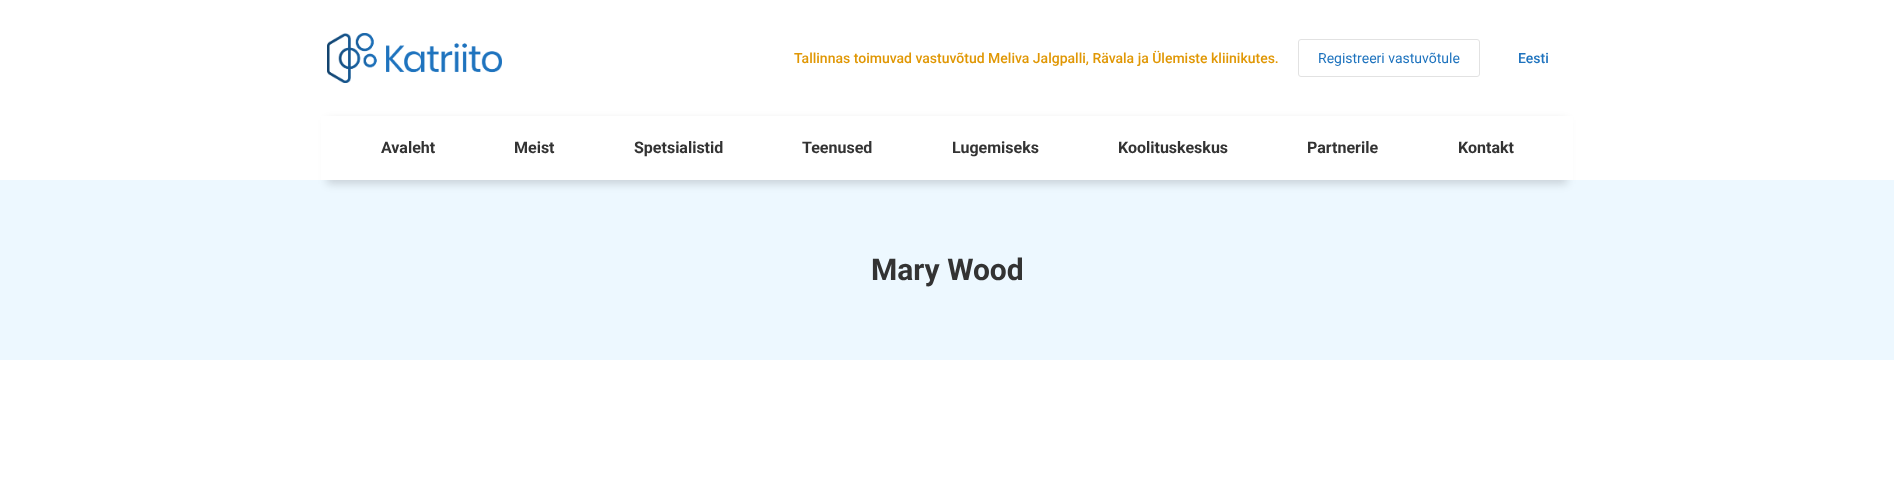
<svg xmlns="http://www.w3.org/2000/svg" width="1894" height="484">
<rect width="100%" height="100%" fill="#fff"/>
<image x="327" y="33" width="175" height="50" href="media/1.png"/>
<text x="794" y="63" style="font-family:Roboto;font-size:14px;font-weight:500;fill:#e09704">Tallinnas toimuvad vastuvõtud Meliva Jalgpalli, Rävala ja Ülemiste kliinikutes.</text>
<rect x="1298.5" y="39.5" width="181" height="37" rx="2.5" fill="none" stroke="#e2e2e2"/>
<text x="1318" y="63" style="font-family:Roboto;font-size:14px;fill:#1e73be">Registreeri vastuvõtule</text>
<text x="1518" y="63" style="font-family:Roboto;font-size:14px;font-weight:500;fill:#1e73be">Eesti</text>
<rect y="180" width="1894" height="180" fill="#edf8ff"/>
<rect x="327" y="120" width="1240" height="64" fill="#00000026" filter="blur(4px)"/>
<rect x="321" y="116" width="1252" height="64" fill="#fff"/>
<text x="381" y="153" style="font-family:Roboto;font-size:16px;font-weight:bold;fill:#333">Avaleht</text>
<text x="514" y="153" style="font-family:Roboto;font-size:16px;font-weight:bold;fill:#333">Meist</text>
<text x="634" y="153" style="font-family:Roboto;font-size:16px;font-weight:bold;fill:#333">Spetsialistid</text>
<text x="802" y="153" style="font-family:Roboto;font-size:16px;font-weight:bold;fill:#333">Teenused</text>
<text x="952" y="153" style="font-family:Roboto;font-size:16px;font-weight:bold;fill:#333">Lugemiseks</text>
<text x="1118" y="153" style="font-family:Roboto;font-size:16px;font-weight:bold;fill:#333">Koolituskeskus</text>
<text x="1307" y="153" style="font-family:Roboto;font-size:16px;font-weight:bold;fill:#333">Partnerile</text>
<text x="1458" y="153" style="font-family:Roboto;font-size:16px;font-weight:bold;fill:#333">Kontakt</text>
<text x="871" y="280" style="font-family:Roboto;font-size:30px;font-weight:bold;fill:#333">Mary Wood</text>
</svg>
